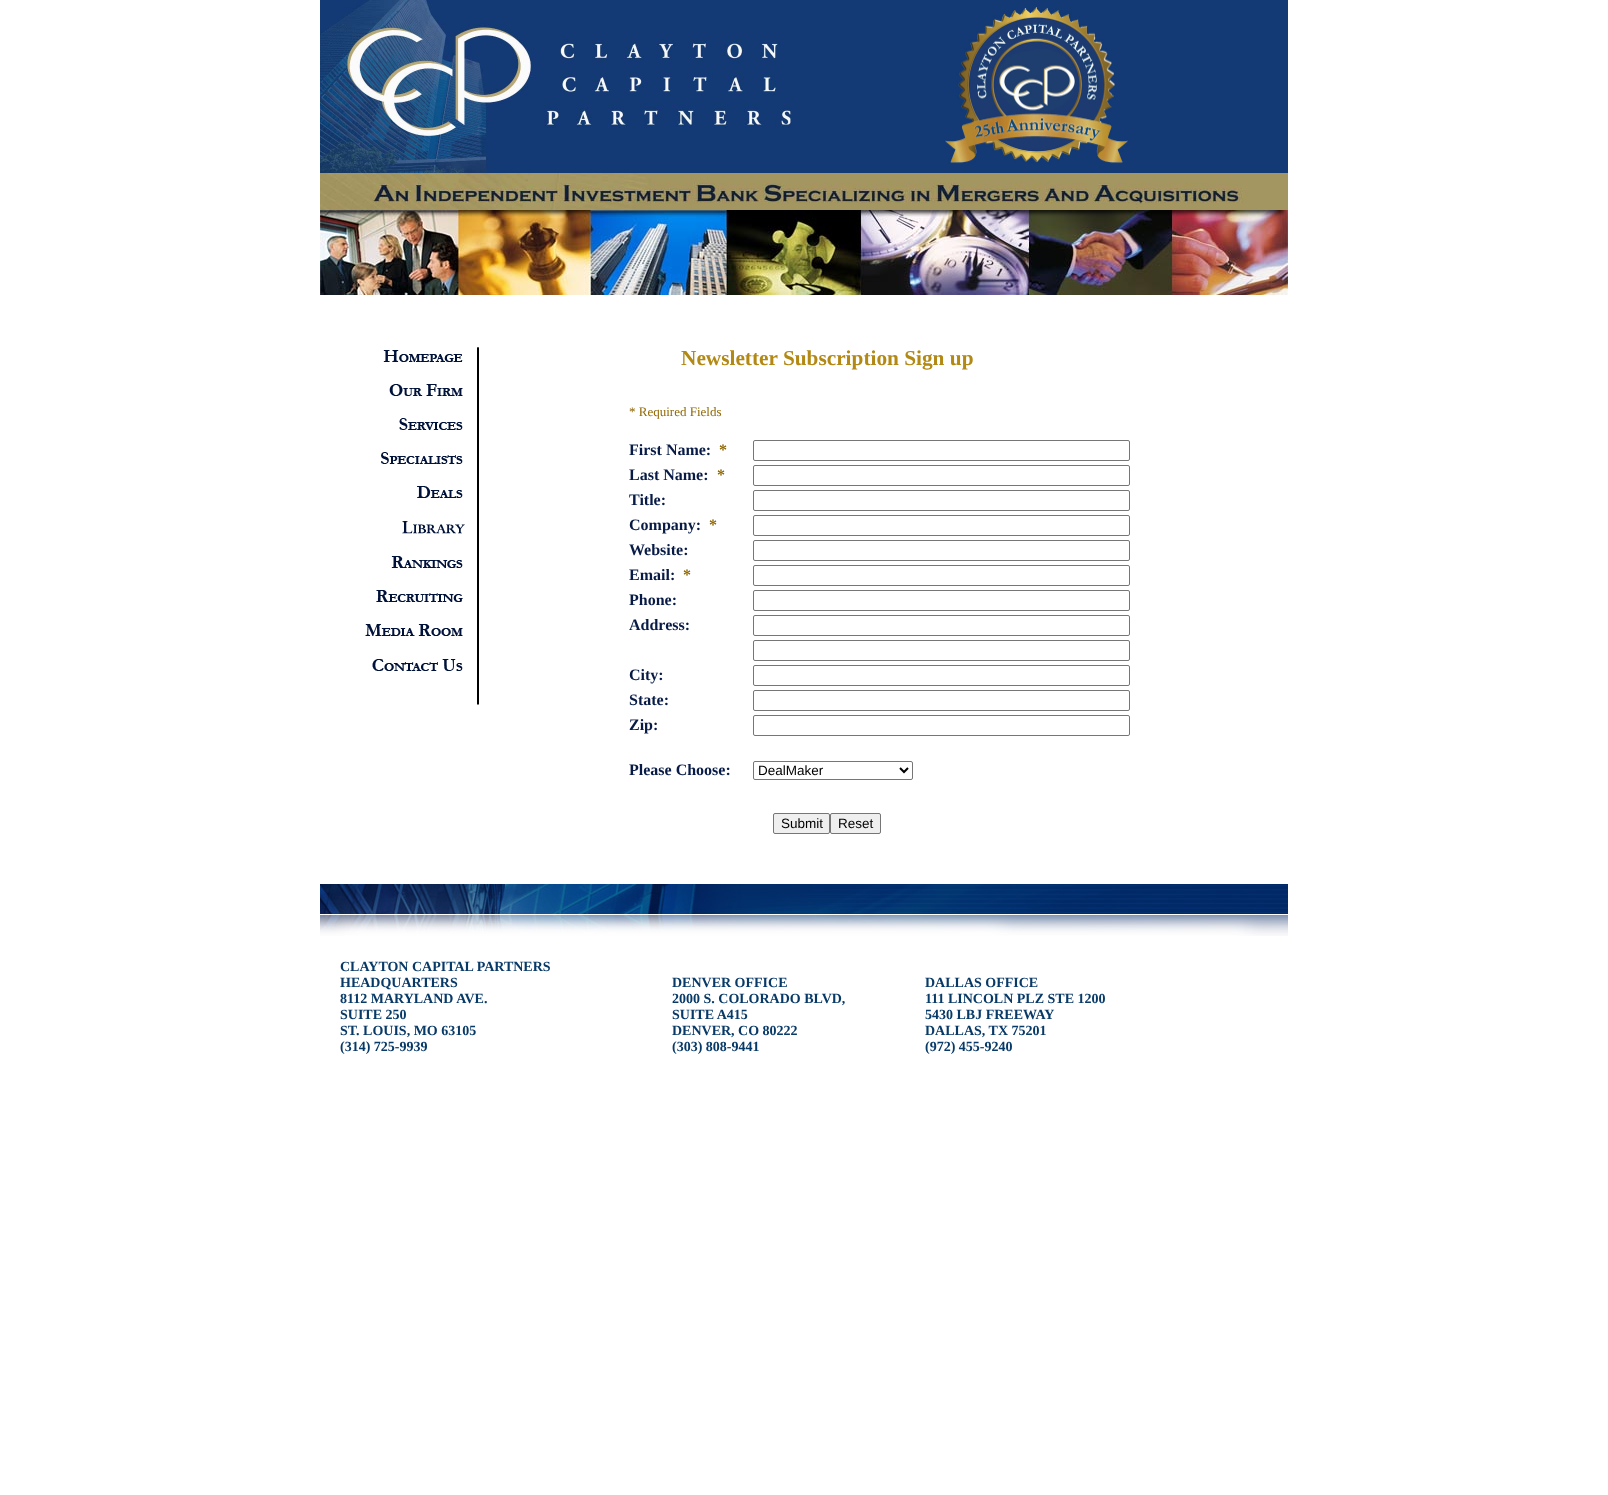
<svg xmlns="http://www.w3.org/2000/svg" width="1608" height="1495">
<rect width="100%" height="100%" fill="#fff"/>
<image x="320" y="0" width="484" height="173" href="media/1.png"/>
<image x="804" y="0" width="484" height="173" href="media/2.png"/>
<image x="320" y="173" width="968" height="37" href="media/3.png"/>
<image x="320" y="210" width="968" height="85" href="media/4.png"/>
<image x="383" y="350" width="80" height="12" href="media/5.png"/>
<image x="389" y="384" width="74" height="12" href="media/6.png"/>
<image x="399" y="418" width="64" height="12" href="media/7.png"/>
<image x="381" y="452" width="82" height="12" href="media/8.png"/>
<image x="417" y="486" width="46" height="12" href="media/9.png"/>
<image x="402" y="521" width="63" height="13" href="media/10.png"/>
<image x="391" y="556" width="72" height="12" href="media/11.png"/>
<image x="376" y="590" width="87" height="12" href="media/12.png"/>
<image x="365" y="624" width="98" height="12" href="media/13.png"/>
<image x="372" y="659" width="91" height="12" href="media/14.png"/>
<image x="477" y="347" width="2" height="358" href="media/15.png"/>
<text x="681" y="365" style="font-family:Liberation Serif;font-size:21.3px;font-weight:bold;fill:#b38916">Newsletter Subscription Sign up</text>
<text x="629" y="416" style="font-family:Liberation Serif;font-size:13px;fill:#916805">* Required Fields</text>
<text x="629" y="455" style="font-family:Liberation Serif;font-size:16px;font-weight:bold;fill:#081b46">First Name:</text>
<text x="719" y="455" style="font-family:Liberation Serif;font-size:16px;font-weight:bold;fill:#916805">*</text>
<rect x="753.5" y="440.5" width="376" height="20" rx="1.5" fill="none" stroke="#767676"/>
<text x="629" y="480" style="font-family:Liberation Serif;font-size:16px;font-weight:bold;fill:#081b46">Last Name:</text>
<text x="717" y="480" style="font-family:Liberation Serif;font-size:16px;font-weight:bold;fill:#916805">*</text>
<rect x="753.5" y="465.5" width="376" height="20" rx="1.5" fill="none" stroke="#767676"/>
<text x="629" y="505" style="font-family:Liberation Serif;font-size:16px;font-weight:bold;fill:#081b46">Title:</text>
<rect x="753.5" y="490.5" width="376" height="20" rx="1.5" fill="none" stroke="#767676"/>
<text x="629" y="530" style="font-family:Liberation Serif;font-size:16px;font-weight:bold;fill:#081b46">Company:</text>
<text x="709" y="530" style="font-family:Liberation Serif;font-size:16px;font-weight:bold;fill:#916805">*</text>
<rect x="753.5" y="515.5" width="376" height="20" rx="1.5" fill="none" stroke="#767676"/>
<text x="629" y="555" style="font-family:Liberation Serif;font-size:16px;font-weight:bold;fill:#081b46">Website:</text>
<rect x="753.5" y="540.5" width="376" height="20" rx="1.5" fill="none" stroke="#767676"/>
<text x="629" y="580" style="font-family:Liberation Serif;font-size:16px;font-weight:bold;fill:#081b46">Email:</text>
<text x="683" y="580" style="font-family:Liberation Serif;font-size:16px;font-weight:bold;fill:#916805">*</text>
<rect x="753.5" y="565.5" width="376" height="20" rx="1.5" fill="none" stroke="#767676"/>
<text x="629" y="605" style="font-family:Liberation Serif;font-size:16px;font-weight:bold;fill:#081b46">Phone:</text>
<rect x="753.5" y="590.5" width="376" height="20" rx="1.5" fill="none" stroke="#767676"/>
<text x="629" y="630" style="font-family:Liberation Serif;font-size:16px;font-weight:bold;fill:#081b46">Address:</text>
<rect x="753.5" y="615.5" width="376" height="20" rx="1.5" fill="none" stroke="#767676"/>
<rect x="753.5" y="640.5" width="376" height="20" rx="1.5" fill="none" stroke="#767676"/>
<text x="629" y="680" style="font-family:Liberation Serif;font-size:16px;font-weight:bold;fill:#081b46">City:</text>
<rect x="753.5" y="665.5" width="376" height="20" rx="1.5" fill="none" stroke="#767676"/>
<text x="629" y="705" style="font-family:Liberation Serif;font-size:16px;font-weight:bold;fill:#081b46">State:</text>
<rect x="753.5" y="690.5" width="376" height="20" rx="1.5" fill="none" stroke="#767676"/>
<text x="629" y="730" style="font-family:Liberation Serif;font-size:16px;font-weight:bold;fill:#081b46">Zip:</text>
<rect x="753.5" y="715.5" width="376" height="20" rx="1.5" fill="none" stroke="#767676"/>
<text x="629" y="775" style="font-family:Liberation Serif;font-size:16px;font-weight:bold;fill:#081b46">Please Choose:</text>
<rect x="753.5" y="761.5" width="159" height="18" rx="1.5" fill="none" stroke="#767676"/>
<path d="M900 768l4 4l4-4" fill="none" stroke="#000" stroke-width="2"/>
<text x="758" y="775" style="font-family:Liberation Sans;font-size:13.5px;fill:#000">DealMaker</text>
<rect x="773.5" y="813.5" width="56" height="20" rx="1.5" fill="#efefef" stroke="#767676"/>
<text x="781" y="828" style="font-family:Liberation Sans;font-size:13.5px;fill:#000">Submit</text>
<rect x="830.5" y="813.5" width="50" height="20" rx="1.5" fill="#efefef" stroke="#767676"/>
<text x="838" y="828" style="font-family:Liberation Sans;font-size:13.5px;fill:#000">Reset</text>
<image x="320" y="884" width="968" height="52" href="media/16.png"/>
<text x="340" y="971" style="font-family:Liberation Serif;font-size:14px;font-weight:bold;fill:#083a68">CLAYTON CAPITAL PARTNERS</text>
<text x="340" y="987" style="font-family:Liberation Serif;font-size:14px;font-weight:bold;fill:#083a68">HEADQUARTERS</text>
<text x="340" y="1003" style="font-family:Liberation Serif;font-size:14px;font-weight:bold;fill:#083a68">8112 MARYLAND AVE.</text>
<text x="340" y="1019" style="font-family:Liberation Serif;font-size:14px;font-weight:bold;fill:#083a68">SUITE 250</text>
<text x="340" y="1035" style="font-family:Liberation Serif;font-size:14px;font-weight:bold;fill:#083a68">ST. LOUIS, MO 63105</text>
<text x="340" y="1051" style="font-family:Liberation Serif;font-size:14px;font-weight:bold;fill:#083a68">(314) 725-9939</text>
<text x="672" y="987" style="font-family:Liberation Serif;font-size:14px;font-weight:bold;fill:#083a68">DENVER OFFICE</text>
<text x="672" y="1003" style="font-family:Liberation Serif;font-size:14px;font-weight:bold;fill:#083a68">2000 S. COLORADO BLVD,</text>
<text x="672" y="1019" style="font-family:Liberation Serif;font-size:14px;font-weight:bold;fill:#083a68">SUITE A415</text>
<text x="672" y="1035" style="font-family:Liberation Serif;font-size:14px;font-weight:bold;fill:#083a68">DENVER, CO 80222</text>
<text x="672" y="1051" style="font-family:Liberation Serif;font-size:14px;font-weight:bold;fill:#083a68">(303) 808-9441</text>
<text x="925" y="987" style="font-family:Liberation Serif;font-size:14px;font-weight:bold;fill:#083a68">DALLAS OFFICE</text>
<text x="925" y="1003" style="font-family:Liberation Serif;font-size:14px;font-weight:bold;fill:#083a68">111 LINCOLN PLZ STE 1200</text>
<text x="925" y="1019" style="font-family:Liberation Serif;font-size:14px;font-weight:bold;fill:#083a68">5430 LBJ FREEWAY</text>
<text x="925" y="1035" style="font-family:Liberation Serif;font-size:14px;font-weight:bold;fill:#083a68">DALLAS, TX 75201</text>
<text x="925" y="1051" style="font-family:Liberation Serif;font-size:14px;font-weight:bold;fill:#083a68">(972) 455-9240</text>
</svg>
